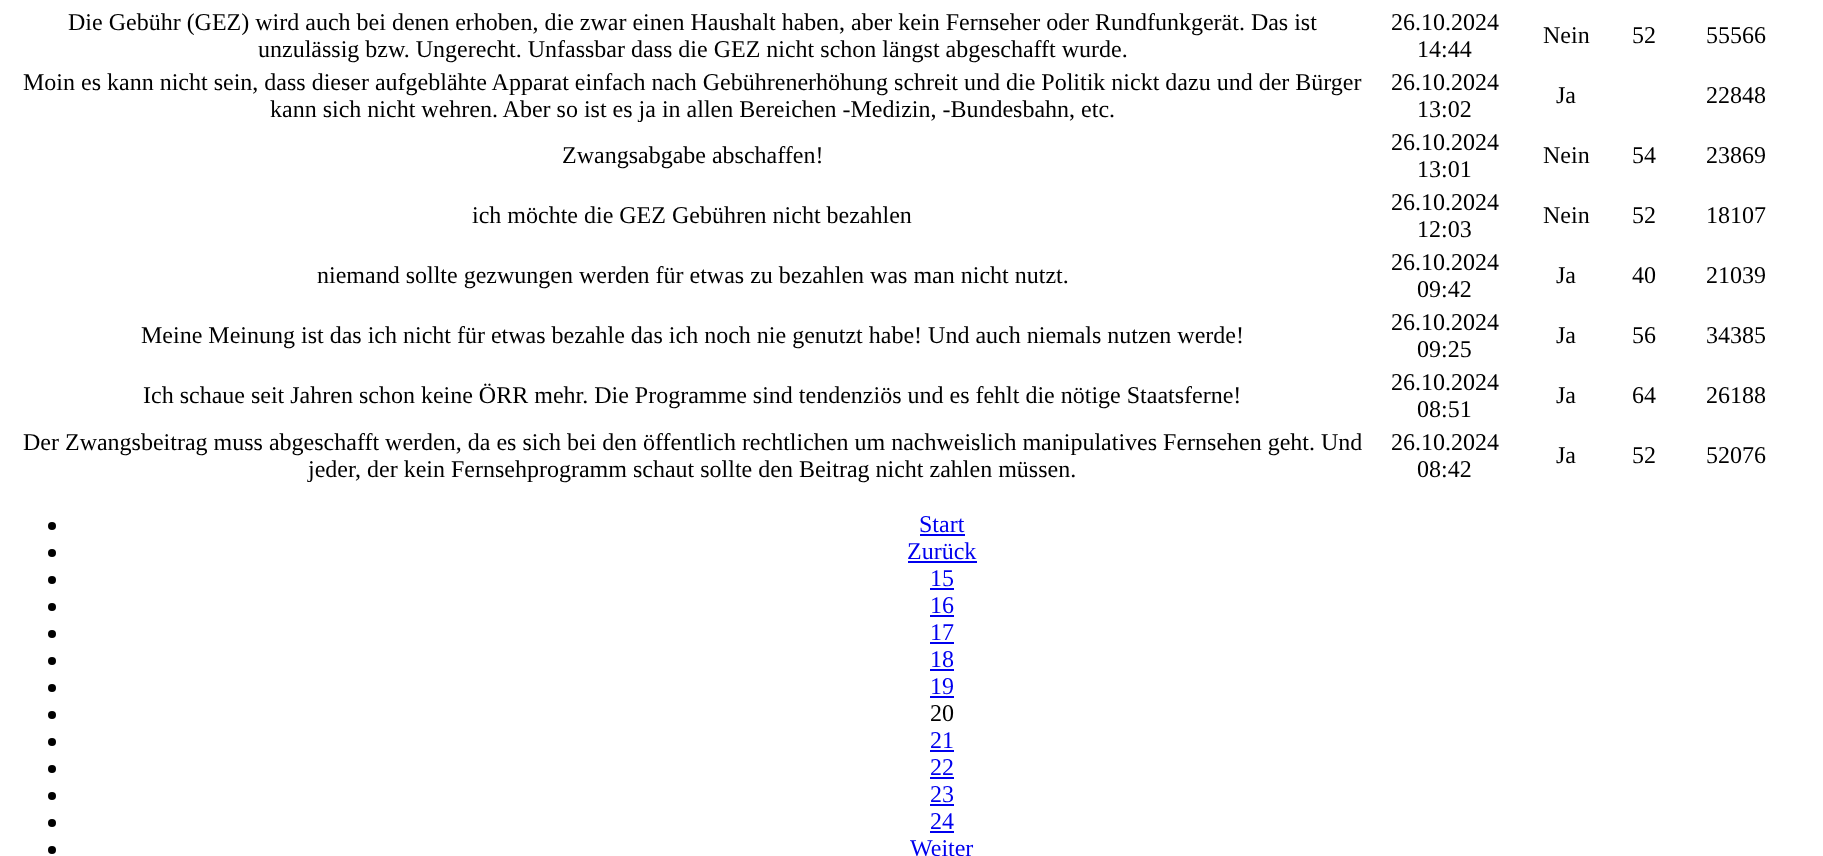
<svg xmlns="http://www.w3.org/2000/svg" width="1823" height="856">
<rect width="100%" height="100%" fill="#fff"/>
<text x="68" y="30" style="font-family:Liberation Serif;font-size:24px;fill:#000">Die Gebühr (GEZ) wird auch bei denen erhoben, die zwar einen Haushalt haben, aber kein Fernseher oder Rundfunkgerät. Das ist</text>
<text x="258" y="57" style="font-family:Liberation Serif;font-size:24px;fill:#000">unzulässig bzw. Ungerecht. Unfassbar dass die GEZ nicht schon längst abgeschafft wurde.</text>
<text x="1391" y="30" style="font-family:Liberation Serif;font-size:24px;fill:#000">26.10.2024</text>
<text x="1417" y="57" style="font-family:Liberation Serif;font-size:24px;fill:#000">14:44</text>
<text x="1543" y="43" style="font-family:Liberation Serif;font-size:24px;fill:#000">Nein</text>
<text x="1632" y="43" style="font-family:Liberation Serif;font-size:24px;fill:#000">52</text>
<text x="1706" y="43" style="font-family:Liberation Serif;font-size:24px;fill:#000">55566</text>
<text x="23" y="90" style="font-family:Liberation Serif;font-size:24px;fill:#000">Moin es kann nicht sein, dass dieser aufgeblähte Apparat einfach nach Gebührenerhöhung schreit und die Politik nickt dazu und der Bürger</text>
<text x="270" y="117" style="font-family:Liberation Serif;font-size:24px;fill:#000">kann sich nicht wehren. Aber so ist es ja in allen Bereichen -Medizin, -Bundesbahn, etc.</text>
<text x="1391" y="90" style="font-family:Liberation Serif;font-size:24px;fill:#000">26.10.2024</text>
<text x="1417" y="117" style="font-family:Liberation Serif;font-size:24px;fill:#000">13:02</text>
<text x="1556" y="103" style="font-family:Liberation Serif;font-size:24px;fill:#000">Ja</text>
<text x="1706" y="103" style="font-family:Liberation Serif;font-size:24px;fill:#000">22848</text>
<text x="562" y="163" style="font-family:Liberation Serif;font-size:24px;fill:#000">Zwangsabgabe abschaffen!</text>
<text x="1391" y="150" style="font-family:Liberation Serif;font-size:24px;fill:#000">26.10.2024</text>
<text x="1417" y="177" style="font-family:Liberation Serif;font-size:24px;fill:#000">13:01</text>
<text x="1543" y="163" style="font-family:Liberation Serif;font-size:24px;fill:#000">Nein</text>
<text x="1632" y="163" style="font-family:Liberation Serif;font-size:24px;fill:#000">54</text>
<text x="1706" y="163" style="font-family:Liberation Serif;font-size:24px;fill:#000">23869</text>
<text x="472" y="223" style="font-family:Liberation Serif;font-size:24px;fill:#000">ich möchte die GEZ Gebühren nicht bezahlen</text>
<text x="1391" y="210" style="font-family:Liberation Serif;font-size:24px;fill:#000">26.10.2024</text>
<text x="1417" y="237" style="font-family:Liberation Serif;font-size:24px;fill:#000">12:03</text>
<text x="1543" y="223" style="font-family:Liberation Serif;font-size:24px;fill:#000">Nein</text>
<text x="1632" y="223" style="font-family:Liberation Serif;font-size:24px;fill:#000">52</text>
<text x="1706" y="223" style="font-family:Liberation Serif;font-size:24px;fill:#000">18107</text>
<text x="317" y="283" style="font-family:Liberation Serif;font-size:24px;fill:#000">niemand sollte gezwungen werden für etwas zu bezahlen was man nicht nutzt.</text>
<text x="1391" y="270" style="font-family:Liberation Serif;font-size:24px;fill:#000">26.10.2024</text>
<text x="1417" y="297" style="font-family:Liberation Serif;font-size:24px;fill:#000">09:42</text>
<text x="1556" y="283" style="font-family:Liberation Serif;font-size:24px;fill:#000">Ja</text>
<text x="1632" y="283" style="font-family:Liberation Serif;font-size:24px;fill:#000">40</text>
<text x="1706" y="283" style="font-family:Liberation Serif;font-size:24px;fill:#000">21039</text>
<text x="141" y="343" style="font-family:Liberation Serif;font-size:24px;fill:#000">Meine Meinung ist das ich nicht für etwas bezahle das ich noch nie genutzt habe! Und auch niemals nutzen werde!</text>
<text x="1391" y="330" style="font-family:Liberation Serif;font-size:24px;fill:#000">26.10.2024</text>
<text x="1417" y="357" style="font-family:Liberation Serif;font-size:24px;fill:#000">09:25</text>
<text x="1556" y="343" style="font-family:Liberation Serif;font-size:24px;fill:#000">Ja</text>
<text x="1632" y="343" style="font-family:Liberation Serif;font-size:24px;fill:#000">56</text>
<text x="1706" y="343" style="font-family:Liberation Serif;font-size:24px;fill:#000">34385</text>
<text x="143" y="403" style="font-family:Liberation Serif;font-size:24px;fill:#000">Ich schaue seit Jahren schon keine ÖRR mehr. Die Programme sind tendenziös und es fehlt die nötige Staatsferne!</text>
<text x="1391" y="390" style="font-family:Liberation Serif;font-size:24px;fill:#000">26.10.2024</text>
<text x="1417" y="417" style="font-family:Liberation Serif;font-size:24px;fill:#000">08:51</text>
<text x="1556" y="403" style="font-family:Liberation Serif;font-size:24px;fill:#000">Ja</text>
<text x="1632" y="403" style="font-family:Liberation Serif;font-size:24px;fill:#000">64</text>
<text x="1706" y="403" style="font-family:Liberation Serif;font-size:24px;fill:#000">26188</text>
<text x="23" y="450" style="font-family:Liberation Serif;font-size:24px;fill:#000">Der Zwangsbeitrag muss abgeschafft werden, da es sich bei den öffentlich rechtlichen um nachweislich manipulatives Fernsehen geht. Und</text>
<text x="308" y="477" style="font-family:Liberation Serif;font-size:24px;fill:#000">jeder, der kein Fernsehprogramm schaut sollte den Beitrag nicht zahlen müssen.</text>
<text x="1391" y="450" style="font-family:Liberation Serif;font-size:24px;fill:#000">26.10.2024</text>
<text x="1417" y="477" style="font-family:Liberation Serif;font-size:24px;fill:#000">08:42</text>
<text x="1556" y="463" style="font-family:Liberation Serif;font-size:24px;fill:#000">Ja</text>
<text x="1632" y="463" style="font-family:Liberation Serif;font-size:24px;fill:#000">52</text>
<text x="1706" y="463" style="font-family:Liberation Serif;font-size:24px;fill:#000">52076</text>
<circle cx="52" cy="526" r="4" fill="#000"/>
<text x="919" y="532" style="font-family:Liberation Serif;font-size:24px;fill:#00e">Start</text>
<rect x="920" y="534" width="45" height="2" fill="#00e"/>
<circle cx="52" cy="553" r="4" fill="#000"/>
<text x="907" y="559" style="font-family:Liberation Serif;font-size:24px;fill:#00e">Zurück</text>
<rect x="908" y="561" width="69" height="2" fill="#00e"/>
<circle cx="52" cy="580" r="4" fill="#000"/>
<text x="930" y="586" style="font-family:Liberation Serif;font-size:24px;fill:#00e">15</text>
<rect x="930" y="588" width="24" height="2" fill="#00e"/>
<circle cx="52" cy="607" r="4" fill="#000"/>
<text x="930" y="613" style="font-family:Liberation Serif;font-size:24px;fill:#00e">16</text>
<rect x="930" y="615" width="24" height="2" fill="#00e"/>
<circle cx="52" cy="634" r="4" fill="#000"/>
<text x="930" y="640" style="font-family:Liberation Serif;font-size:24px;fill:#00e">17</text>
<rect x="930" y="642" width="24" height="2" fill="#00e"/>
<circle cx="52" cy="661" r="4" fill="#000"/>
<text x="930" y="667" style="font-family:Liberation Serif;font-size:24px;fill:#00e">18</text>
<rect x="930" y="669" width="24" height="2" fill="#00e"/>
<circle cx="52" cy="688" r="4" fill="#000"/>
<text x="930" y="694" style="font-family:Liberation Serif;font-size:24px;fill:#00e">19</text>
<rect x="930" y="696" width="24" height="2" fill="#00e"/>
<circle cx="52" cy="715" r="4" fill="#000"/>
<text x="930" y="721" style="font-family:Liberation Serif;font-size:24px;fill:#000">20</text>
<circle cx="52" cy="742" r="4" fill="#000"/>
<text x="930" y="748" style="font-family:Liberation Serif;font-size:24px;fill:#00e">21</text>
<rect x="930" y="750" width="24" height="2" fill="#00e"/>
<circle cx="52" cy="769" r="4" fill="#000"/>
<text x="930" y="775" style="font-family:Liberation Serif;font-size:24px;fill:#00e">22</text>
<rect x="930" y="777" width="24" height="2" fill="#00e"/>
<circle cx="52" cy="796" r="4" fill="#000"/>
<text x="930" y="802" style="font-family:Liberation Serif;font-size:24px;fill:#00e">23</text>
<rect x="930" y="804" width="24" height="2" fill="#00e"/>
<circle cx="52" cy="823" r="4" fill="#000"/>
<text x="930" y="829" style="font-family:Liberation Serif;font-size:24px;fill:#00e">24</text>
<rect x="930" y="831" width="24" height="2" fill="#00e"/>
<circle cx="52" cy="850" r="4" fill="#000"/>
<text x="910" y="856" style="font-family:Liberation Serif;font-size:24px;fill:#00e">Weiter</text>
</svg>
